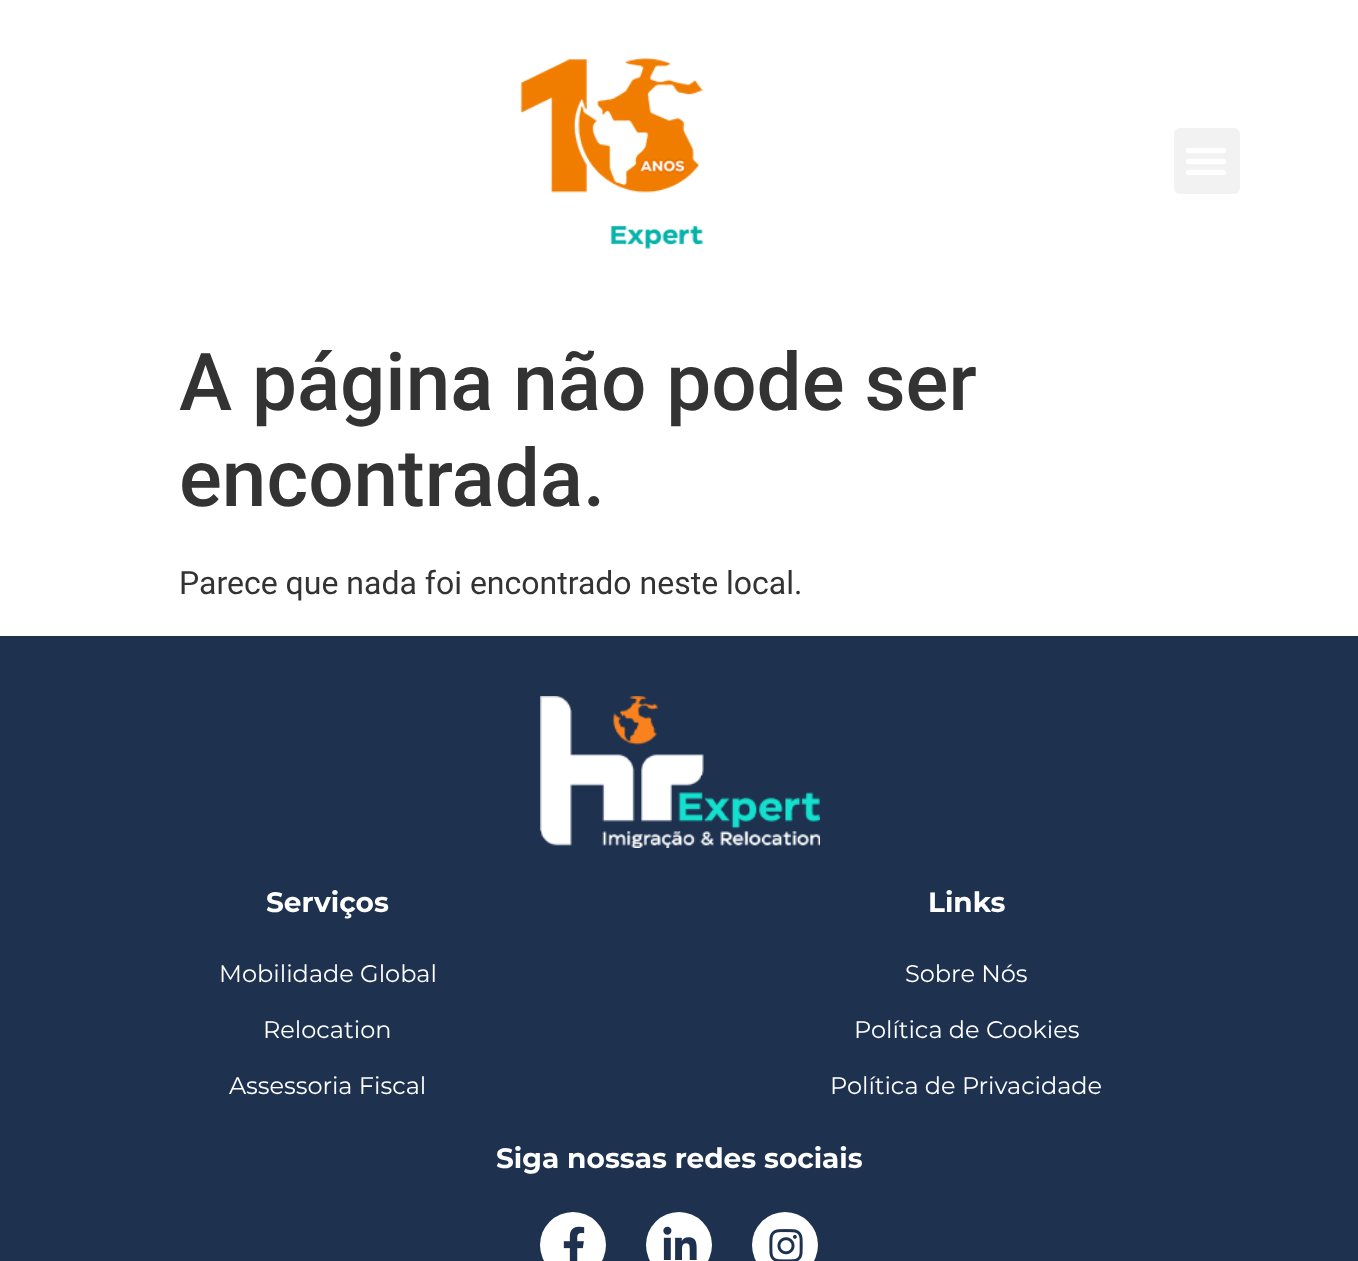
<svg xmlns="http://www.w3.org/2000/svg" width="1358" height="1261">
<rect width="100%" height="100%" fill="#fff"/>
<image x="520" y="57" width="184" height="192" href="media/1.png"/>
<rect x="1174" y="128" width="66" height="66" rx="6" fill="#f2f2f2"/>
<image x="1186" y="148" width="40" height="27" href="media/2.png"/>
<text x="179" y="410" style="font-family:Roboto;font-size:80px;font-weight:500;fill:#333">A página não pode ser</text>
<text x="179" y="506" style="font-family:Roboto;font-size:80px;font-weight:500;fill:#333">encontrada.</text>
<text x="179" y="594" style="font-family:Roboto;font-size:32px;fill:#333">Parece que nada foi encontrado neste local.</text>
<rect y="636" width="1358" height="625" fill="#1e3250"/>
<image x="540" y="696" width="280" height="152" href="media/3.png"/>
<text x="266" y="912" style="font-family:Montserrat;font-size:28px;font-weight:bold;fill:#fff">Serviços</text>
<text x="219" y="982" style="font-family:Montserrat;font-size:24px;fill:#fff">Mobilidade Global</text>
<text x="263" y="1038" style="font-family:Montserrat;font-size:24px;fill:#fff">Relocation</text>
<text x="229" y="1094" style="font-family:Montserrat;font-size:24px;fill:#fff">Assessoria Fiscal</text>
<text x="928" y="912" style="font-family:Montserrat;font-size:28px;font-weight:bold;fill:#fff">Links</text>
<text x="905" y="982" style="font-family:Montserrat;font-size:24px;fill:#fff">Sobre Nós</text>
<text x="854" y="1038" style="font-family:Montserrat;font-size:24px;fill:#fff">Política de Cookies</text>
<text x="830" y="1094" style="font-family:Montserrat;font-size:24px;fill:#fff">Política de Privacidade</text>
<text x="496" y="1168" style="font-family:Montserrat;font-size:28px;font-weight:bold;fill:#fff">Siga nossas redes sociais</text>
<circle cx="573" cy="1245" r="33" fill="#fff"/>
<image x="563" y="1226" width="22" height="35" href="media/4.png"/>
<circle cx="679" cy="1245" r="33" fill="#fff"/>
<image x="663" y="1226" width="34" height="34" href="media/5.png"/>
<circle cx="785" cy="1245" r="33" fill="#fff"/>
<image x="769" y="1229" width="34" height="32" href="media/6.png"/>
</svg>
